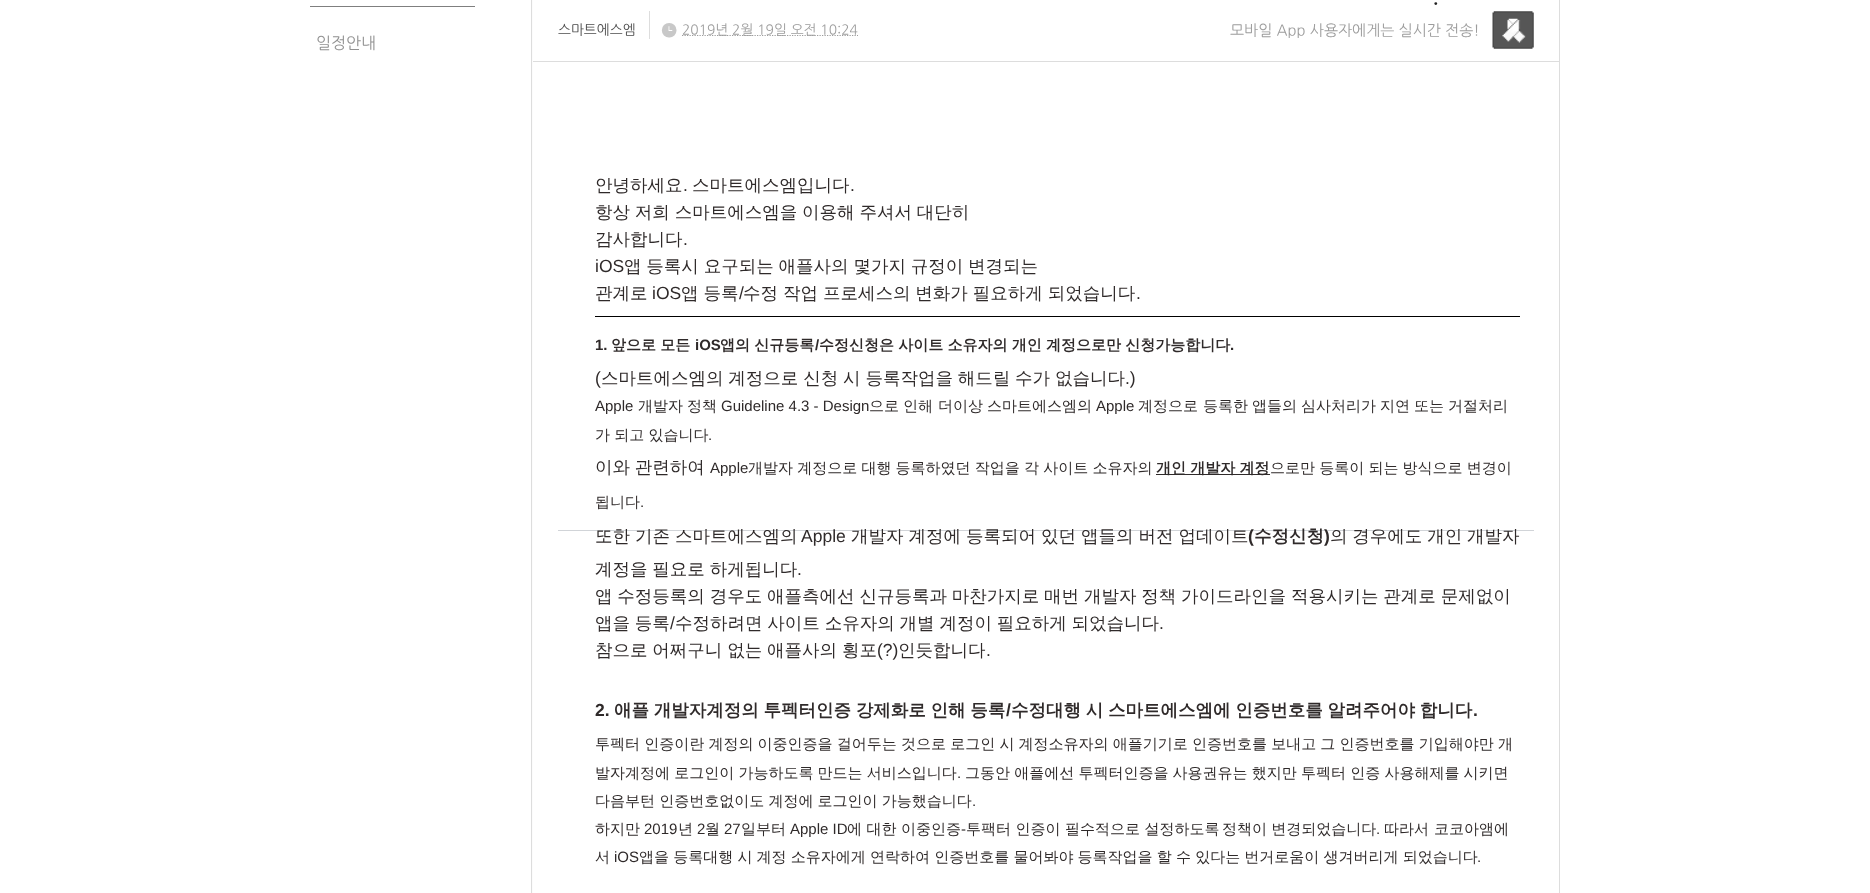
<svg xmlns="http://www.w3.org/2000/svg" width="1870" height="893">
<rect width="100%" height="100%" fill="#fff"/>
<rect x="310" y="6" width="165" height="1" fill="#7f7f7f"/>
<text x="316" y="48" style="font-family:NanumGothic;font-size:16px;fill:#919191">일정안내</text>
<rect x="532" width="1" height="893" fill="#fcfcfc"/>
<rect x="531.5" y="-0.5" width="1028" height="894" fill="none" stroke="#ddd"/>
<rect x="533" y="61" width="1026" height="1" fill="#ddd"/>
<text x="1432" y="3" style="font-family:NanumGothic;font-size:22px;font-weight:bold;fill:#222">.</text>
<text x="558" y="34" style="font-family:NanumGothic;font-size:13.75px;fill:#4c4c4c">스마트에스엠</text>
<rect x="649" y="11" width="1" height="28" fill="#ddd"/>
<text x="660" y="34" style="font-family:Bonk;font-size:28px;fill:#c8c8c8">C</text>
<path d="M682 35.5h176" fill="none" stroke="#9d9d9d" stroke-width="1.2" stroke-dasharray="1.25 1.25"/>
<text x="682" y="34" style="font-family:NanumGothic;font-size:13.75px;fill:#9d9d9d">2019년 2월 19일 오전 10:24</text>
<text x="1230" y="35" style="font-family:NanumGothic;font-size:15px;fill:#9d9d9d">모바일 App 사용자에게는 실시간 전송!</text>
<image x="1492" y="11" width="42" height="38" href="media/1.png"/>
<text x="595" y="191" style="font-family:WenQuanYi Zen Hei;font-size:17.5px;font-weight:500;fill:#2f2a2a">안녕하세요</text>
<text x="683" y="191" style="font-family:Liberation Sans;font-size:17.5px;fill:#2f2a2a">.</text>
<text x="692" y="191" style="font-family:WenQuanYi Zen Hei;font-size:17.5px;font-weight:500;fill:#2f2a2a">스마트에스엠입니다</text>
<text x="850" y="191" style="font-family:Liberation Sans;font-size:17.5px;fill:#2f2a2a">.</text>
<text x="595" y="218" word-spacing="-0.4" style="font-family:WenQuanYi Zen Hei;font-size:17.5px;font-weight:500;fill:#2f2a2a">항상 저희 스마트에스엠을 이용해 주셔서 대단히</text>
<text x="595" y="245" style="font-family:WenQuanYi Zen Hei;font-size:17.5px;font-weight:500;fill:#2f2a2a">감사합니다</text>
<text x="683" y="245" style="font-family:Liberation Sans;font-size:17.5px;fill:#2f2a2a">.</text>
<text x="595" y="272" style="font-family:Liberation Sans;font-size:17.5px;fill:#2f2a2a">iOS</text>
<text x="624" y="272" word-spacing="-0.4" style="font-family:WenQuanYi Zen Hei;font-size:17.5px;font-weight:500;fill:#2f2a2a">앱 등록시 요구되는 애플사의 몇가지 규정이 변경되는</text>
<text x="595" y="299" style="font-family:WenQuanYi Zen Hei;font-size:17.5px;font-weight:500;fill:#2f2a2a">관계로</text>
<text x="652" y="299" style="font-family:Liberation Sans;font-size:17.5px;fill:#2f2a2a">iOS</text>
<text x="681" y="299" word-spacing="-0.3" style="font-family:WenQuanYi Zen Hei;font-size:17.5px;font-weight:500;fill:#2f2a2a">앱 등록</text>
<text x="739" y="299" style="font-family:Liberation Sans;font-size:17.5px;fill:#2f2a2a">/</text>
<text x="743" y="299" word-spacing="-0.3" style="font-family:WenQuanYi Zen Hei;font-size:17.5px;font-weight:500;fill:#2f2a2a">수정 작업 프로세스의 변화가 필요하게 되었습니다</text>
<text x="1136" y="299" style="font-family:Liberation Sans;font-size:17.5px;fill:#2f2a2a">.</text>
<rect x="595" y="316" width="925" height="1" fill="#000"/>
<text x="595" y="350" style="font-family:Liberation Sans;font-size:15px;font-weight:bold;fill:#2f2a2a">1.</text>
<text x="611" y="350" word-spacing="-0.25" style="font-family:WenQuanYi Zen Hei;font-size:15px;font-weight:bold;fill:#2f2a2a">앞으로 모든</text>
<text x="695" y="350" style="font-family:Liberation Sans;font-size:15px;font-weight:bold;fill:#2f2a2a">iOS</text>
<text x="720" y="350" word-spacing="-0.25" style="font-family:WenQuanYi Zen Hei;font-size:15px;font-weight:bold;fill:#2f2a2a">앱의 신규등록</text>
<text x="815" y="350" style="font-family:Liberation Sans;font-size:15px;font-weight:bold;fill:#2f2a2a">/</text>
<text x="819" y="350" word-spacing="-0.25" style="font-family:WenQuanYi Zen Hei;font-size:15px;font-weight:bold;fill:#2f2a2a">수정신청은 사이트 소유자의 개인 계정으로만 신청가능합니다</text>
<text x="1230" y="350" style="font-family:Liberation Sans;font-size:15px;font-weight:bold;fill:#2f2a2a">.</text>
<text x="595" y="384" style="font-family:Liberation Sans;font-size:17.5px;fill:#2f2a2a">(</text>
<text x="601" y="384" word-spacing="-0.4" style="font-family:WenQuanYi Zen Hei;font-size:17.5px;font-weight:500;fill:#2f2a2a">스마트에스엠의 계정으로 신청 시 등록작업을 해드릴 수가 없습니다</text>
<text x="1125" y="384" style="font-family:Liberation Sans;font-size:17.5px;fill:#2f2a2a">.)</text>
<text x="595" y="411" style="font-family:Liberation Sans;font-size:15px;fill:#2f2a2a">Apple</text>
<text x="638" y="411" style="font-family:WenQuanYi Zen Hei;font-size:15px;font-weight:500;fill:#2f2a2a">개발자</text>
<text x="687" y="411" style="font-family:WenQuanYi Zen Hei;font-size:15px;font-weight:500;fill:#2f2a2a">정책</text>
<text x="721" y="411" style="font-family:Liberation Sans;font-size:15px;fill:#2f2a2a">Guideline 4.3 - Design</text>
<text x="869" y="411" style="font-family:WenQuanYi Zen Hei;font-size:15px;font-weight:500;fill:#2f2a2a">으로</text>
<text x="903" y="411" style="font-family:WenQuanYi Zen Hei;font-size:15px;font-weight:500;fill:#2f2a2a">인해</text>
<text x="938" y="411" style="font-family:WenQuanYi Zen Hei;font-size:15px;font-weight:500;fill:#2f2a2a">더이상</text>
<text x="987" y="411" style="font-family:WenQuanYi Zen Hei;font-size:15px;font-weight:500;fill:#2f2a2a">스마트에스엠의</text>
<text x="1096" y="411" style="font-family:Liberation Sans;font-size:15px;fill:#2f2a2a">Apple</text>
<text x="1138" y="411" style="font-family:WenQuanYi Zen Hei;font-size:15px;font-weight:500;fill:#2f2a2a">계정으로</text>
<text x="1203" y="411" style="font-family:WenQuanYi Zen Hei;font-size:15px;font-weight:500;fill:#2f2a2a">등록한</text>
<text x="1252" y="411" style="font-family:WenQuanYi Zen Hei;font-size:15px;font-weight:500;fill:#2f2a2a">앱들의</text>
<text x="1301" y="411" style="font-family:WenQuanYi Zen Hei;font-size:15px;font-weight:500;fill:#2f2a2a">심사처리가</text>
<text x="1380" y="411" style="font-family:WenQuanYi Zen Hei;font-size:15px;font-weight:500;fill:#2f2a2a">지연</text>
<text x="1414" y="411" style="font-family:WenQuanYi Zen Hei;font-size:15px;font-weight:500;fill:#2f2a2a">또는</text>
<text x="1448" y="411" style="font-family:WenQuanYi Zen Hei;font-size:15px;font-weight:500;fill:#2f2a2a">거절처리</text>
<text x="595" y="440" word-spacing="-0.3" style="font-family:WenQuanYi Zen Hei;font-size:15px;font-weight:500;fill:#2f2a2a">가 되고 있습니다</text>
<text x="708" y="440" style="font-family:Liberation Sans;font-size:15px;fill:#2f2a2a">.</text>
<text x="595" y="473" word-spacing="-0.4" style="font-family:WenQuanYi Zen Hei;font-size:17.5px;font-weight:500;fill:#2f2a2a">이와 관련하여</text>
<text x="710" y="473" style="font-family:Liberation Sans;font-size:15px;fill:#2f2a2a">Apple</text>
<text x="748" y="473" word-spacing="-0.3" style="font-family:WenQuanYi Zen Hei;font-size:15px;font-weight:500;fill:#2f2a2a">개발자 계정으로 대행 등록하였던 작업을 각 사이트 소유자의</text>
<rect x="1156" y="474" width="114" height="1" fill="#2f2a2a"/>
<text x="1156" y="473" word-spacing="-0.3" style="font-family:WenQuanYi Zen Hei;font-size:15px;font-weight:bold;fill:#2f2a2a">개인 개발자 계정</text>
<text x="1270" y="473" word-spacing="-0.3" style="font-family:WenQuanYi Zen Hei;font-size:15px;font-weight:500;fill:#2f2a2a">으로만 등록이 되는 방식으로 변경이</text>
<text x="595" y="507" style="font-family:WenQuanYi Zen Hei;font-size:15px;font-weight:500;fill:#2f2a2a">됩니다</text>
<text x="640" y="507" style="font-family:Liberation Sans;font-size:15px;fill:#2f2a2a">.</text>
<rect x="558" y="530" width="976" height="1" fill="#d1d4d8"/>
<text x="595" y="542" word-spacing="-0.25" style="font-family:WenQuanYi Zen Hei;font-size:17.5px;font-weight:500;fill:#2f2a2a">또한 기존 스마트에스엠의</text>
<text x="801" y="542" style="font-family:Liberation Sans;font-size:17.5px;fill:#2f2a2a">Apple</text>
<text x="851" y="542" word-spacing="-0.25" style="font-family:WenQuanYi Zen Hei;font-size:17.5px;font-weight:500;fill:#2f2a2a">개발자 계정에 등록되어 있던 앱들의 버전 업데이트</text>
<text x="1248" y="542" style="font-family:Liberation Sans;font-size:17.5px;font-weight:bold;fill:#2f2a2a">(</text>
<text x="1254" y="542" style="font-family:WenQuanYi Zen Hei;font-size:17.5px;font-weight:bold;fill:#2f2a2a">수정신청</text>
<text x="1324" y="542" style="font-family:Liberation Sans;font-size:17.5px;font-weight:bold;fill:#2f2a2a">)</text>
<text x="1330" y="542" word-spacing="-0.4" style="font-family:WenQuanYi Zen Hei;font-size:17.5px;font-weight:500;fill:#2f2a2a">의 경우에도 개인 개발자</text>
<text x="595" y="575" word-spacing="-0.4" style="font-family:WenQuanYi Zen Hei;font-size:17.5px;font-weight:500;fill:#2f2a2a">계정을 필요로 하게됩니다</text>
<text x="797" y="575" style="font-family:Liberation Sans;font-size:17.5px;fill:#2f2a2a">.</text>
<text x="595" y="602" word-spacing="-0.4" style="font-family:WenQuanYi Zen Hei;font-size:17.5px;font-weight:500;fill:#2f2a2a">앱 수정등록의 경우도 애플측에선 신규등록과 마찬가지로 매번 개발자 정책 가이드라인을 적용시키는 관계로 문제없이</text>
<text x="595" y="629" word-spacing="-0.4" style="font-family:WenQuanYi Zen Hei;font-size:17.5px;font-weight:500;fill:#2f2a2a">앱을 등록</text>
<text x="670" y="629" style="font-family:Liberation Sans;font-size:17.5px;fill:#2f2a2a">/</text>
<text x="675" y="629" word-spacing="-0.4" style="font-family:WenQuanYi Zen Hei;font-size:17.5px;font-weight:500;fill:#2f2a2a">수정하려면 사이트 소유자의 개별 계정이 필요하게 되었습니다</text>
<text x="1159" y="629" style="font-family:Liberation Sans;font-size:17.5px;fill:#2f2a2a">.</text>
<text x="595" y="656" word-spacing="-0.4" style="font-family:WenQuanYi Zen Hei;font-size:17.5px;font-weight:500;fill:#2f2a2a">참으로 어쩌구니 없는 애플사의 횡포</text>
<text x="877" y="656" style="font-family:Liberation Sans;font-size:17.5px;fill:#2f2a2a">(?)</text>
<text x="898" y="656" style="font-family:WenQuanYi Zen Hei;font-size:17.5px;font-weight:500;fill:#2f2a2a">인듯합니다</text>
<text x="986" y="656" style="font-family:Liberation Sans;font-size:17.5px;fill:#2f2a2a">.</text>
<text x="595" y="716" style="font-family:Liberation Sans;font-size:17.5px;font-weight:bold;fill:#2f2a2a">2.</text>
<text x="614" y="716" word-spacing="-0.5" style="font-family:WenQuanYi Zen Hei;font-size:17.5px;font-weight:bold;fill:#2f2a2a">애플 개발자계정의 투펙터인증 강제화로 인해 등록</text>
<text x="1006" y="716" style="font-family:Liberation Sans;font-size:17.5px;font-weight:bold;fill:#2f2a2a">/</text>
<text x="1011" y="716" word-spacing="-0.5" style="font-family:WenQuanYi Zen Hei;font-size:17.5px;font-weight:bold;fill:#2f2a2a">수정대행 시 스마트에스엠에 인증번호를 알려주어야 합니다</text>
<text x="1473" y="716" style="font-family:Liberation Sans;font-size:17.5px;font-weight:bold;fill:#2f2a2a">.</text>
<text x="595" y="749" word-spacing="-0.3" style="font-family:WenQuanYi Zen Hei;font-size:15px;font-weight:500;fill:#2f2a2a">투펙터 인증이란 계정의 이중인증을 걸어두는 것으로 로그인 시 계정소유자의 애플기기로 인증번호를 보내고 그 인증번호를 기입해야만 개</text>
<text x="595" y="778" word-spacing="-0.3" style="font-family:WenQuanYi Zen Hei;font-size:15px;font-weight:500;fill:#2f2a2a">발자계정에 로그인이 가능하도록 만드는 서비스입니다</text>
<text x="957" y="778" style="font-family:Liberation Sans;font-size:15px;fill:#2f2a2a">.</text>
<text x="965" y="778" word-spacing="-0.3" style="font-family:WenQuanYi Zen Hei;font-size:15px;font-weight:500;fill:#2f2a2a">그동안 애플에선 투펙터인증을 사용권유는 했지만 투펙터 인증 사용해제를 시키면</text>
<text x="595" y="806" word-spacing="-0.3" style="font-family:WenQuanYi Zen Hei;font-size:15px;font-weight:500;fill:#2f2a2a">다음부턴 인증번호없이도 계정에 로그인이 가능했습니다</text>
<text x="972" y="806" style="font-family:Liberation Sans;font-size:15px;fill:#2f2a2a">.</text>
<text x="595" y="834" style="font-family:WenQuanYi Zen Hei;font-size:15px;font-weight:500;fill:#2f2a2a">하지만</text>
<text x="644" y="834" style="font-family:Liberation Sans;font-size:15px;fill:#2f2a2a">2019</text>
<text x="678" y="834" style="font-family:WenQuanYi Zen Hei;font-size:15px;font-weight:500;fill:#2f2a2a">년</text>
<text x="697" y="834" style="font-family:Liberation Sans;font-size:15px;fill:#2f2a2a">2</text>
<text x="705" y="834" style="font-family:WenQuanYi Zen Hei;font-size:15px;font-weight:500;fill:#2f2a2a">월</text>
<text x="724" y="834" style="font-family:Liberation Sans;font-size:15px;fill:#2f2a2a">27</text>
<text x="741" y="834" style="font-family:WenQuanYi Zen Hei;font-size:15px;font-weight:500;fill:#2f2a2a">일부터</text>
<text x="790" y="834" style="font-family:Liberation Sans;font-size:15px;fill:#2f2a2a">Apple ID</text>
<text x="847" y="834" style="font-family:WenQuanYi Zen Hei;font-size:15px;font-weight:500;fill:#2f2a2a">에 대한 이중인증</text>
<text x="961" y="834" style="font-family:Liberation Sans;font-size:15px;fill:#2f2a2a">-</text>
<text x="966" y="834" style="font-family:WenQuanYi Zen Hei;font-size:15px;font-weight:500;fill:#2f2a2a">투팩터 인증이 필수적으로 설정하도록</text>
<text x="1222" y="834" word-spacing="-0.3" style="font-family:WenQuanYi Zen Hei;font-size:15px;font-weight:500;fill:#2f2a2a">정책이 변경되었습니다</text>
<text x="1384" y="834" style="font-family:WenQuanYi Zen Hei;font-size:15px;font-weight:500;fill:#2f2a2a">따라서</text>
<text x="1434" y="834" style="font-family:WenQuanYi Zen Hei;font-size:15px;font-weight:500;fill:#2f2a2a">코코아앰에</text>
<text x="1376" y="834" style="font-family:Liberation Sans;font-size:15px;fill:#2f2a2a">.</text>
<text x="595" y="862" style="font-family:WenQuanYi Zen Hei;font-size:15px;font-weight:500;fill:#2f2a2a">서</text>
<text x="614" y="862" style="font-family:Liberation Sans;font-size:15px;fill:#2f2a2a">iOS</text>
<text x="639" y="862" word-spacing="-0.3" style="font-family:WenQuanYi Zen Hei;font-size:15px;font-weight:500;fill:#2f2a2a">앱을 등록대행 시 계정 소유자에게 연락하여 인증번호를 물어봐야 등록작업을 할 수 있다는 번거로움이 생겨버리게 되었습니다</text>
<text x="1477" y="862" style="font-family:Liberation Sans;font-size:15px;fill:#2f2a2a">.</text>
</svg>
